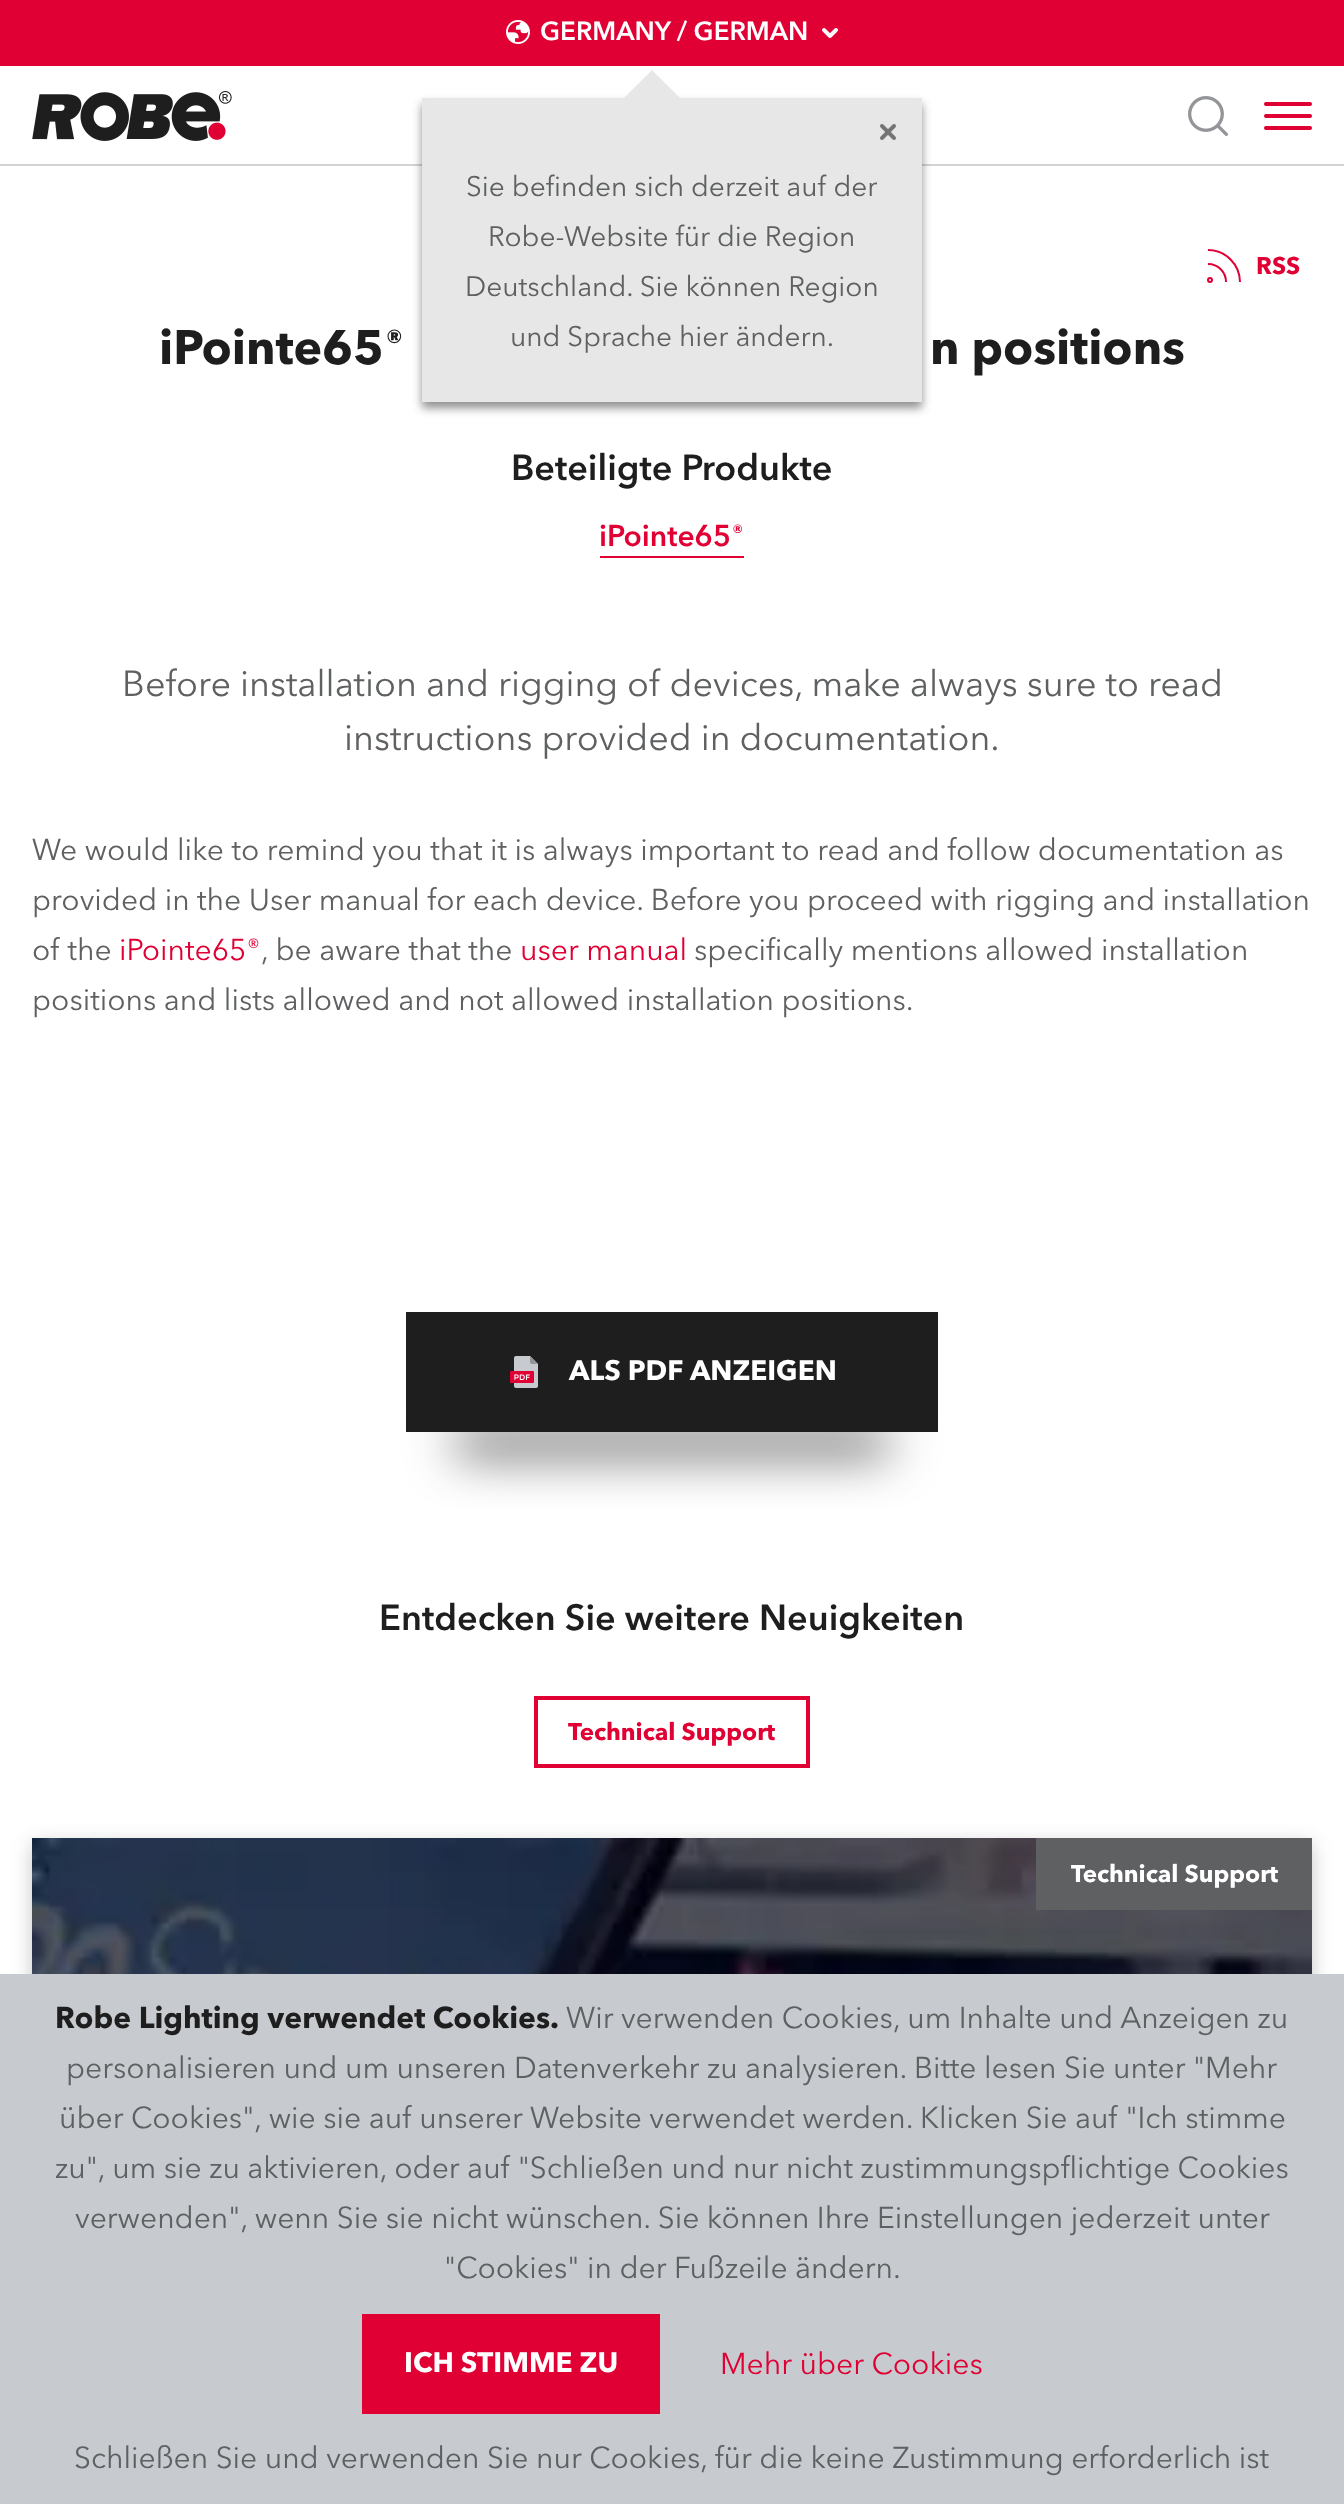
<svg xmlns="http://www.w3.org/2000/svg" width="1344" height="2504">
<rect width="100%" height="100%" fill="#fff"/>
<rect width="1344" height="66" fill="#e00034"/>
<image x="506" y="20" width="24" height="24" href="media/1.png"/>
<text x="540" y="40" style="font-family:Avenir Next;font-size:26px;font-weight:600;fill:#fff">GERMANY / GERMAN</text>
<image x="822" y="28" width="16" height="10" href="media/2.png"/>
<rect y="164" width="1344" height="2" fill="#d3d3d3"/>
<image x="1188" y="96" width="40" height="40" href="media/3.png"/>
<image x="1264" y="102" width="48" height="28" href="media/4.png"/>
<image x="32" y="91" width="200" height="50" href="media/5.png"/>
<rect x="422" y="104" width="500" height="304" fill="#1e1e1e80" filter="blur(5px)"/>
<rect x="422" y="98" width="500" height="304" fill="#e7e7e7"/>
<path d="M652 70l28 28l-28 28l-28-28z" fill="#e7e7e7"/>
<image x="880" y="124" width="16" height="16" href="media/6.png"/>
<text x="466" y="196" style="font-family:Avenir Next;font-size:28px;fill:#5e6062">Sie befinden sich derzeit auf der</text>
<text x="488" y="246" style="font-family:Avenir Next;font-size:28px;fill:#5e6062">Robe-Website für die Region</text>
<text x="465" y="296" style="font-family:Avenir Next;font-size:28px;fill:#5e6062">Deutschland. Sie können Region</text>
<text x="510" y="346" style="font-family:Avenir Next;font-size:28px;fill:#5e6062">und Sprache hier ändern.</text>
<path d="M1208 264c10 0 18 8 18 18m-18-32c17.5 0 32 14.5 32 32" fill="none" stroke="#e00034" stroke-width="2"/>
<circle cx="1210" cy="280" r="2" fill="none" stroke="#e00034" stroke-width="2"/>
<text x="1256" y="274" style="font-family:Avenir Next;font-size:24px;font-weight:bold;fill:#e00034">RSS</text>
<text x="159" y="364" style="font-family:Avenir Next;font-size:48px;font-weight:bold;fill:#1e1e1e">iPointe65®</text>
<text x="930" y="364" style="font-family:Avenir Next;font-size:48px;font-weight:bold;fill:#1e1e1e">n positions</text>
<text x="511" y="480" style="font-family:Avenir Next;font-size:36px;font-weight:600;fill:#1e1e1e">Beteiligte Produkte</text>
<rect x="600" y="556" width="144" height="2" fill="#e00034"/>
<text x="599" y="546" style="font-family:Avenir Next;font-size:30px;font-weight:600;fill:#e00034">iPointe65®</text>
<text x="122" y="696" style="font-family:Avenir Next;font-size:36px;fill:#5e6062">Before installation and rigging of devices, make always sure to read</text>
<text x="344" y="750" style="font-family:Avenir Next;font-size:36px;fill:#5e6062">instructions provided in documentation.</text>
<text x="32" y="860" style="font-family:Avenir Next;font-size:30px;fill:#5e6062">We would like to remind you that it is always important to read and follow documentation as</text>
<text x="32" y="910" style="font-family:Avenir Next;font-size:30px;fill:#5e6062">provided in the User manual for each device. Before you proceed with rigging and installation</text>
<text x="32" y="960" style="font-family:Avenir Next;font-size:30px;fill:#5e6062">of the</text>
<text x="119" y="960" style="font-family:Avenir Next;font-size:30px;fill:#e00034">iPointe65®</text>
<text x="261" y="960" style="font-family:Avenir Next;font-size:30px;fill:#5e6062">, be aware that the</text>
<text x="520" y="960" style="font-family:Avenir Next;font-size:30px;fill:#e00034">user manual</text>
<text x="694" y="960" style="font-family:Avenir Next;font-size:30px;fill:#5e6062">specifically mentions allowed installation</text>
<text x="32" y="1010" style="font-family:Avenir Next;font-size:30px;fill:#5e6062">positions and lists allowed and not allowed installation positions.</text>
<rect x="456" y="1432" width="432" height="20" fill="#1e1e1e" filter="blur(25px)"/>
<rect x="406" y="1312" width="532" height="120" fill="#1e1e1e"/>
<image x="510" y="1356" width="28" height="32" href="media/7.png"/>
<text x="569" y="1380" style="font-family:Avenir Next;font-size:28px;font-weight:bold;fill:#fff">ALS PDF ANZEIGEN</text>
<text x="379" y="1630" style="font-family:Avenir Next;font-size:36px;font-weight:600;fill:#1e1e1e">Entdecken Sie weitere Neuigkeiten</text>
<rect x="536" y="1698" width="272" height="68" fill="none" stroke="#e00034" stroke-width="4"/>
<text x="568" y="1740" style="font-family:Avenir Next;font-size:24px;font-weight:bold;fill:#e00034">Technical Support</text>
<rect x="32" y="1844" width="1280" height="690" fill="#1e1e1e40" filter="blur(10px)"/>
<image x="32" y="1838" width="1280" height="136" href="media/8.png"/>
<rect x="1036" y="1838" width="276" height="72" fill="#5e6062"/>
<text x="1071" y="1882" style="font-family:Avenir Next;font-size:24px;font-weight:bold;fill:#fff">Technical Support</text>
<rect y="1974" width="1344" height="530" fill="#c7cace"/>
<text x="55" y="2028" style="font-family:Avenir Next;font-size:30px;font-weight:bold;fill:#1e1e1e">Robe Lighting verwendet Cookies.</text>
<text x="566" y="2028" style="font-family:Avenir Next;font-size:30px;fill:#5e6062">Wir verwenden Cookies, um Inhalte und Anzeigen zu</text>
<text x="66" y="2078" style="font-family:Avenir Next;font-size:30px;fill:#5e6062">personalisieren und um unseren Datenverkehr zu analysieren. Bitte lesen Sie unter "Mehr</text>
<text x="59" y="2128" style="font-family:Avenir Next;font-size:30px;fill:#5e6062">über Cookies", wie sie auf unserer Website verwendet werden. Klicken Sie auf "Ich stimme</text>
<text x="55" y="2178" style="font-family:Avenir Next;font-size:30px;fill:#5e6062">zu", um sie zu aktivieren, oder auf "Schließen und nur nicht zustimmungspflichtige Cookies</text>
<text x="75" y="2228" style="font-family:Avenir Next;font-size:30px;fill:#5e6062">verwenden", wenn Sie sie nicht wünschen. Sie können Ihre Einstellungen jederzeit unter</text>
<text x="444" y="2278" style="font-family:Avenir Next;font-size:30px;fill:#5e6062">"Cookies" in der Fußzeile ändern.</text>
<rect x="362" y="2314" width="298" height="100" fill="#e00034"/>
<text x="404" y="2372" style="font-family:Avenir Next;font-size:28px;font-weight:bold;fill:#fff">ICH STIMME ZU</text>
<text x="720" y="2374" style="font-family:Avenir Next;font-size:30px;fill:#e00034">Mehr über Cookies</text>
<text x="74" y="2468" style="font-family:Avenir Next;font-size:30px;fill:#5e6062">Schließen Sie und verwenden Sie nur Cookies, für die keine Zustimmung erforderlich ist</text>
</svg>
